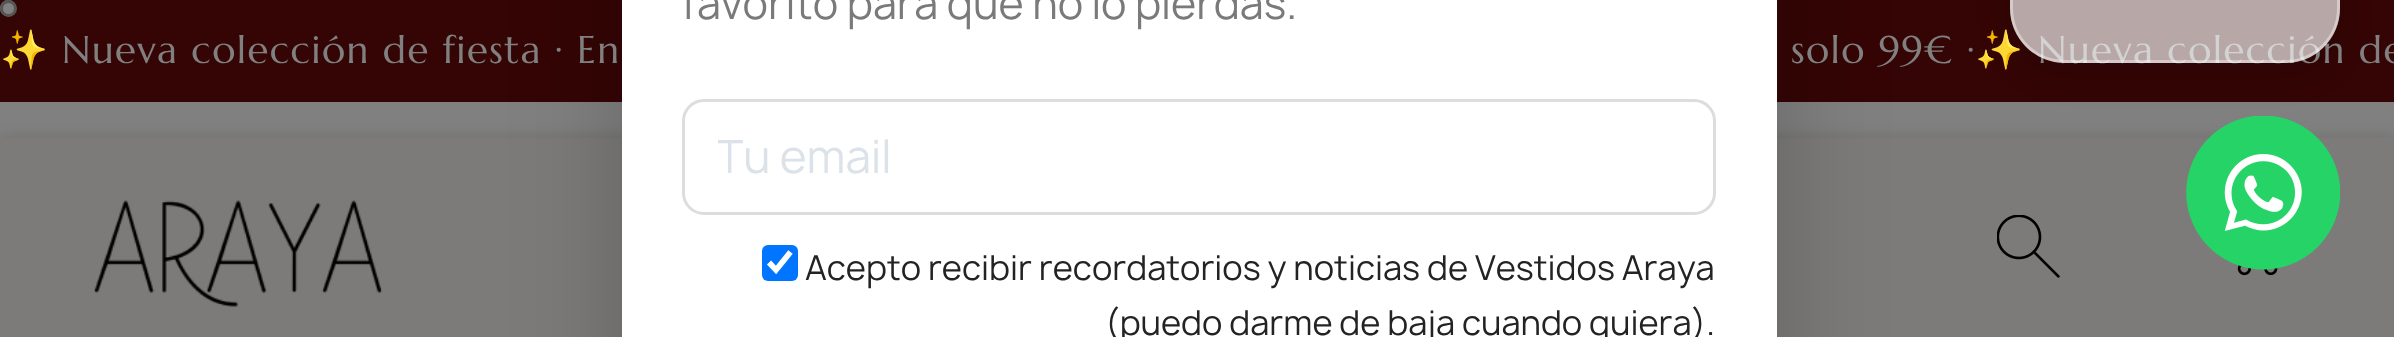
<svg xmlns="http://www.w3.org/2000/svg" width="2394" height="337">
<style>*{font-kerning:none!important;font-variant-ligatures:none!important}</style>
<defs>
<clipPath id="clip1"><rect x="718" y="121" width="962" height="74"/></clipPath>
<clipPath id="clip2"><path d="M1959 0h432v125h-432zm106-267h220c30.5 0 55 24.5 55 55v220c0 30.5-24.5 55-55 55h-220c-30.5 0-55-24.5-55-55v-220c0-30.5 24.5-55 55-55z" clip-rule="evenodd"/></clipPath>
</defs>
<rect width="100%" height="100%" fill="#808080"/>
<rect width="2394" height="102" fill="#350505"/>
<image x="0" y="0" width="17" height="17" href="media/1.png"/>
<circle cx="8.5" cy="8.5" r="7" fill="none" stroke="#555" stroke-width="3"/>
<rect y="140" width="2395" height="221" fill="#4f4d4a80" filter="blur(8px)"/>
<rect y="138" width="2394" height="199" fill="#7d7b79"/>
<rect x="622" y="-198" width="1155" height="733" rx="33" fill="#00000033" filter="blur(55px)"/>
<rect x="622" width="1155" height="337" fill="#fff"/>
<text x="681" y="19" style="font-family:Manrope;font-size:41.25px;fill:#7a7a7a">favorito para que no lo pierdas.</text>
<rect x="683.5" y="100.5" width="1031" height="113" rx="20.5" fill="none" stroke="#ddd" stroke-width="3"/>
<g clip-path="url(#clip1)">
<text x="716" y="173" style="font-family:Manrope;font-size:44px;fill:#dce2ea">Tu email</text>
</g>
<rect x="762" y="245" width="36" height="36" rx="6" fill="#0075ff"/>
<path d="M769 262.5l7 7.5l14.5-18" fill="none" stroke="#fff" stroke-width="5.7"/>
<text x="805" y="280" style="font-family:Manrope;font-size:33px;fill:#232323">Acepto recibir recordatorios y noticias</text>
<text x="1427" y="280" style="font-family:Manrope;font-size:33px;fill:#232323">de Vestidos Araya</text>
<text x="1105" y="335" style="font-family:Manrope;font-size:33px;fill:#232323">(puedo darme de baja cuando quiera).</text>
<g clip-path="url(#clip2)">
<rect x="2010" y="-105" width="330" height="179" rx="55" fill="#00000026" filter="blur(16.5px)"/>
</g>
<text x="1975" y="63" style="font-family:Noto Color Emoji;font-size:38.5px;letter-spacing:1.4px;fill:#808080">✨</text>
<text x="2038" y="63" style="font-family:Marcellus;font-size:38.5px;letter-spacing:1.4px;fill:#808080">Nueva colección de</text>
<rect x="2010" y="-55" width="330" height="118" rx="55" fill="#ffffffa6"/>
<rect x="2011.5" y="-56.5" width="327" height="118" rx="53.5" fill="none" stroke="#ffffff66" stroke-width="3"/>
<image x="2237" y="265" width="41" height="11" href="media/4.png"/>
<image x="2186" y="116" width="154" height="154" href="media/2.png"/>
<text x="0" y="63" style="font-family:Noto Color Emoji;font-size:38.5px;letter-spacing:1.4px;fill:#808080">✨</text>
<text x="62" y="63" style="font-family:Marcellus;font-size:38.5px;letter-spacing:1.4px;fill:#808080">Nueva colección de fiesta · En</text>
<text x="1791" y="63" style="font-family:Marcellus;font-size:38.5px;letter-spacing:1.4px;fill:#808080">solo 99€ ·</text>
<image x="1997" y="215" width="63" height="63" href="media/3.png"/>
<image x="94" y="200" width="289" height="107" href="media/5.png"/>
</svg>
